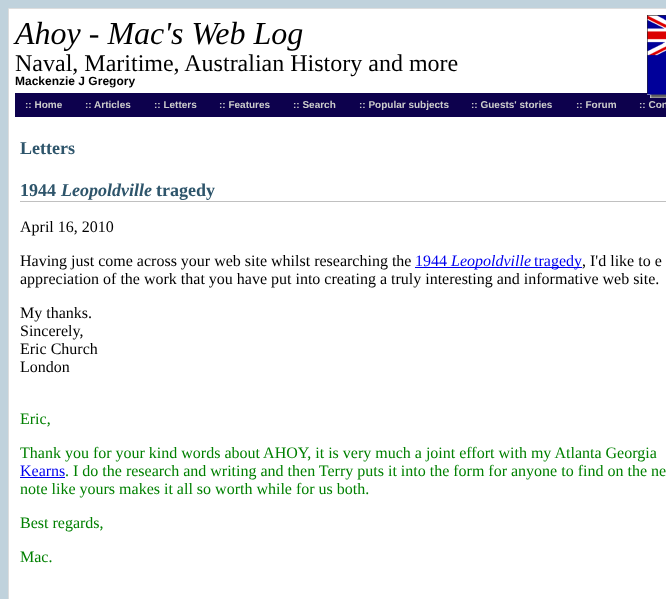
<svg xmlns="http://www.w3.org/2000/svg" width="666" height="599">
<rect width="100%" height="100%" fill="#c0d2dc"/>
<rect x="9" y="9" width="657" height="590" fill="#fff"/>
<path d="M8 8h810l-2 1h-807z" fill="#ddd"/>
<path d="M8 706v-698l1 1v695z" fill="#ddd"/>
<text x="15" y="44" style="font-family:Liberation Serif;font-size:32px;font-style:italic;fill:#000">Ahoy - Mac's Web Log</text>
<rect x="15" y="93" width="651" height="24" fill="#0d014d"/>
<image x="647" y="15" width="19" height="83" href="media/1.png"/>
<text x="15" y="71" style="font-family:Liberation Serif;font-size:24px;fill:#000">Naval, Maritime, Australian History and more</text>
<text x="15" y="85" style="font-family:Liberation Sans;font-size:12px;font-weight:bold;fill:#000">Mackenzie J Gregory</text>
<text x="25" y="108" style="font-family:Liberation Sans;font-size:10px;font-weight:bold;fill:#ccc">:: Home</text>
<text x="85" y="108" style="font-family:Liberation Sans;font-size:10px;font-weight:bold;fill:#ccc">:: Articles</text>
<text x="154" y="108" style="font-family:Liberation Sans;font-size:10px;font-weight:bold;fill:#ccc">:: Letters</text>
<text x="219" y="108" style="font-family:Liberation Sans;font-size:10px;font-weight:bold;fill:#ccc">:: Features</text>
<text x="293" y="108" style="font-family:Liberation Sans;font-size:10px;font-weight:bold;fill:#ccc">:: Search</text>
<text x="359" y="108" style="font-family:Liberation Sans;font-size:10px;font-weight:bold;fill:#ccc">:: Popular subjects</text>
<text x="471" y="108" style="font-family:Liberation Sans;font-size:10px;font-weight:bold;fill:#ccc">:: Guests' stories</text>
<text x="576" y="108" style="font-family:Liberation Sans;font-size:10px;font-weight:bold;fill:#ccc">:: Forum</text>
<text x="639" y="108" style="font-family:Liberation Sans;font-size:10px;font-weight:bold;fill:#ccc">:: Con</text>
<rect x="20" y="201" width="646" height="1" fill="#c0c0c0"/>
<text x="20" y="154" style="font-family:Liberation Serif;font-size:18px;font-weight:bold;fill:#2e556b">Letters</text>
<text x="20" y="196" style="font-family:Liberation Serif;font-size:18px;font-weight:bold;fill:#2e556b">1944</text>
<text x="61" y="196" style="font-family:Liberation Serif;font-size:18px;font-weight:bold;font-style:italic;fill:#2e556b">Leopoldville</text>
<text x="156" y="196" style="font-family:Liberation Serif;font-size:18px;font-weight:bold;fill:#2e556b">tragedy</text>
<text x="20" y="232" style="font-family:Liberation Serif;font-size:16px;fill:#000">April 16, 2010</text>
<text x="20" y="266" style="font-family:Liberation Serif;font-size:16px;fill:#000">Having just come across your web site whilst researching the</text>
<text x="415" y="266" style="font-family:Liberation Serif;font-size:16px;fill:#00e">1944</text>
<rect x="415" y="267" width="116" height="1" fill="#00e"/>
<text x="451" y="266" style="font-family:Liberation Serif;font-size:16px;font-style:italic;fill:#00e">Leopoldville</text>
<rect x="531" y="267" width="51" height="1" fill="#00e"/>
<text x="534" y="266" style="font-family:Liberation Serif;font-size:16px;fill:#00e">tragedy</text>
<text x="582" y="266" style="font-family:Liberation Serif;font-size:16px;fill:#000">, I'd like to e</text>
<text x="20" y="284" style="font-family:Liberation Serif;font-size:16px;fill:#000">appreciation of the work that you have put into creating a truly interesting and informative web site.</text>
<text x="20" y="318" style="font-family:Liberation Serif;font-size:16px;fill:#000">My thanks.</text>
<text x="20" y="336" style="font-family:Liberation Serif;font-size:16px;fill:#000">Sincerely,</text>
<text x="20" y="354" style="font-family:Liberation Serif;font-size:16px;fill:#000">Eric Church</text>
<text x="20" y="372" style="font-family:Liberation Serif;font-size:16px;fill:#000">London</text>
<text x="20" y="424" style="font-family:Liberation Serif;font-size:16px;fill:#008000">Eric,</text>
<text x="20" y="458" style="font-family:Liberation Serif;font-size:16px;fill:#008000">Thank you for your kind words about AHOY, it is very much a joint effort with my Atlanta Georgia</text>
<text x="20" y="476" style="font-family:Liberation Serif;font-size:16px;fill:#00e">Kearns</text>
<rect x="20" y="477" width="45" height="1" fill="#00e"/>
<text x="65" y="476" style="font-family:Liberation Serif;font-size:16px;fill:#008000">. I do the research and writing and then Terry puts it into the form for anyone to find on the ne</text>
<text x="20" y="494" style="font-family:Liberation Serif;font-size:16px;fill:#008000">note like yours makes it all so worth while for us both.</text>
<text x="20" y="528" style="font-family:Liberation Serif;font-size:16px;fill:#008000">Best regards,</text>
<text x="20" y="562" style="font-family:Liberation Serif;font-size:16px;fill:#008000">Mac.</text>
</svg>
